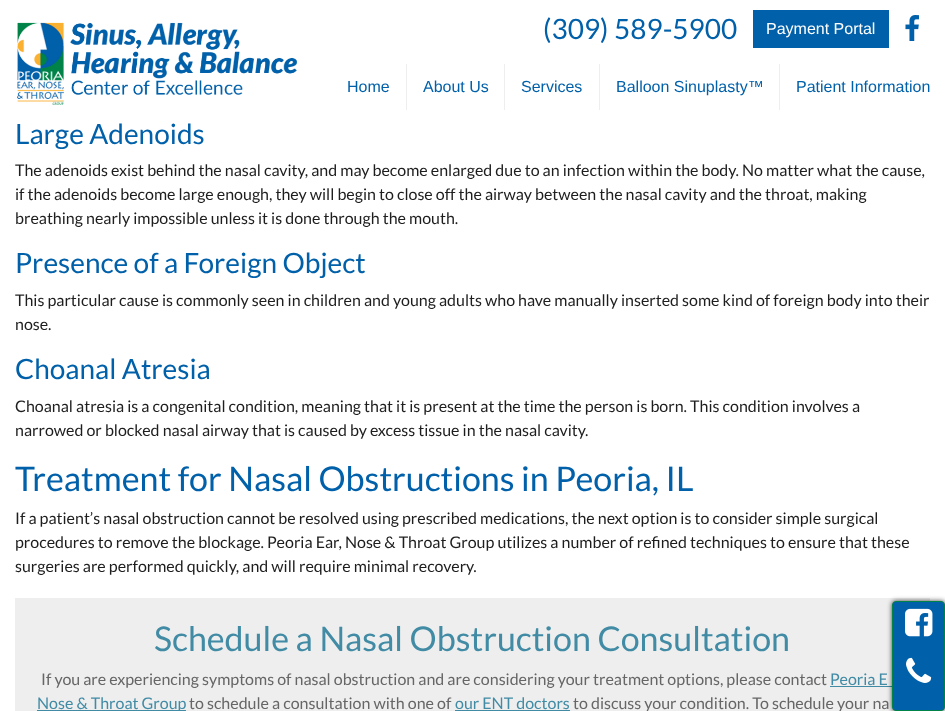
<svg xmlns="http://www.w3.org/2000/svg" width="945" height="711">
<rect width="100%" height="100%" fill="#fff"/>
<image x="17" y="22" width="281" height="83" href="media/1.png"/>
<text x="543" y="39" style="font-family:Lato;font-size:28px;fill:#0060a9">(309) 589-5900</text>
<rect x="753" y="10" width="136" height="38" fill="#0060a9"/>
<text x="766" y="34" style="font-family:Liberation Sans;font-size:16px;fill:#fff">Payment Portal</text>
<image x="905" y="15" width="14" height="26" href="media/2.png"/>
<text x="347" y="92" style="font-family:Liberation Sans;font-size:16px;fill:#0060a9">Home</text>
<rect x="406" y="64" width="1" height="46" fill="#eee"/>
<text x="423" y="92" style="font-family:Liberation Sans;font-size:16px;fill:#0060a9">About Us</text>
<rect x="504" y="64" width="1" height="46" fill="#eee"/>
<text x="521" y="92" style="font-family:Liberation Sans;font-size:16px;fill:#0060a9">Services</text>
<rect x="599" y="64" width="1" height="46" fill="#eee"/>
<text x="616" y="92" style="font-family:Liberation Sans;font-size:16px;fill:#0060a9">Balloon Sinuplasty™</text>
<rect x="779" y="64" width="1" height="46" fill="#eee"/>
<text x="796" y="92" style="font-family:Liberation Sans;font-size:16px;fill:#0060a9">Patient Information</text>
<text x="15" y="144" style="font-family:Lato;font-size:28px;fill:#0060a9">Large Adenoids</text>
<text x="15" y="176" style="font-family:Lato;font-size:16px;fill:#1e1e1e">The adenoids exist behind the nasal cavity, and may become enlarged due to an infection within the body. No matter what the cause,</text>
<text x="15" y="200" style="font-family:Lato;font-size:16px;fill:#1e1e1e">if the adenoids become large enough, they will begin to close off the airway between the nasal cavity and the throat, making</text>
<text x="15" y="224" style="font-family:Lato;font-size:16px;fill:#1e1e1e">breathing nearly impossible unless it is done through the mouth.</text>
<text x="15" y="273" style="font-family:Lato;font-size:28px;fill:#0060a9">Presence of a Foreign Object</text>
<text x="15" y="306" style="font-family:Lato;font-size:16px;fill:#1e1e1e">This particular cause is commonly seen in children and young adults who have manually inserted some kind of foreign body into their</text>
<text x="15" y="330" style="font-family:Lato;font-size:16px;fill:#1e1e1e">nose.</text>
<text x="15" y="379" style="font-family:Lato;font-size:28px;fill:#0060a9">Choanal Atresia</text>
<text x="15" y="412" style="font-family:Lato;font-size:16px;fill:#1e1e1e">Choanal atresia is a congenital condition, meaning that it is present at the time the person is born. This condition involves a</text>
<text x="15" y="436" style="font-family:Lato;font-size:16px;fill:#1e1e1e">narrowed or blocked nasal airway that is caused by excess tissue in the nasal cavity.</text>
<text x="15" y="491" style="font-family:Lato;font-size:34px;fill:#0060a9">Treatment for Nasal Obstructions in Peoria, IL</text>
<text x="15" y="524" style="font-family:Lato;font-size:16px;fill:#1e1e1e">If a patient’s nasal obstruction cannot be resolved using prescribed medications, the next option is to consider simple surgical</text>
<text x="15" y="548" style="font-family:Lato;font-size:16px;fill:#1e1e1e">procedures to remove the blockage. Peoria Ear, Nose &amp; Throat Group utilizes a number of refined techniques to ensure that these</text>
<text x="15" y="572" style="font-family:Lato;font-size:16px;fill:#1e1e1e">surgeries are performed quickly, and will require minimal recovery.</text>
<rect x="15" y="598" width="915" height="113" fill="#eee"/>
<text x="154" y="651" style="font-family:Lato;font-size:34px;fill:#418ba5">Schedule a Nasal Obstruction Consultation</text>
<text x="41" y="685" style="font-family:Lato;font-size:16px;fill:#666">If you are experiencing symptoms of nasal obstruction and are considering your treatment options, please contact</text>
<text x="830" y="685" style="font-family:Lato;font-size:16px;fill:#418ba5">Peoria E</text>
<rect x="830" y="686" width="62" height="1" fill="#418ba5"/>
<rect x="37" y="710" width="149" height="1" fill="#418ba5"/>
<text x="37" y="709" style="font-family:Lato;font-size:16px;fill:#418ba5">Nose &amp; Throat Group</text>
<text x="189" y="709" style="font-family:Lato;font-size:16px;fill:#666">to schedule a consultation with one of</text>
<text x="455" y="709" style="font-family:Lato;font-size:16px;fill:#418ba5">our ENT doctors</text>
<rect x="455" y="710" width="115" height="1" fill="#418ba5"/>
<text x="573" y="709" style="font-family:Lato;font-size:16px;fill:#666">to discuss your condition. To schedule your na</text>
<rect x="892" y="601" width="53" height="110" rx="4" fill="#000000bf" filter="blur(2.5px)"/>
<rect x="892.5" y="601.5" width="52" height="109" rx="3.5" fill="#0060a9" stroke="#008348"/>
<image x="905" y="608" width="28" height="29" href="media/3.png"/>
<image x="906" y="657" width="26" height="26" href="media/4.png"/>
</svg>
